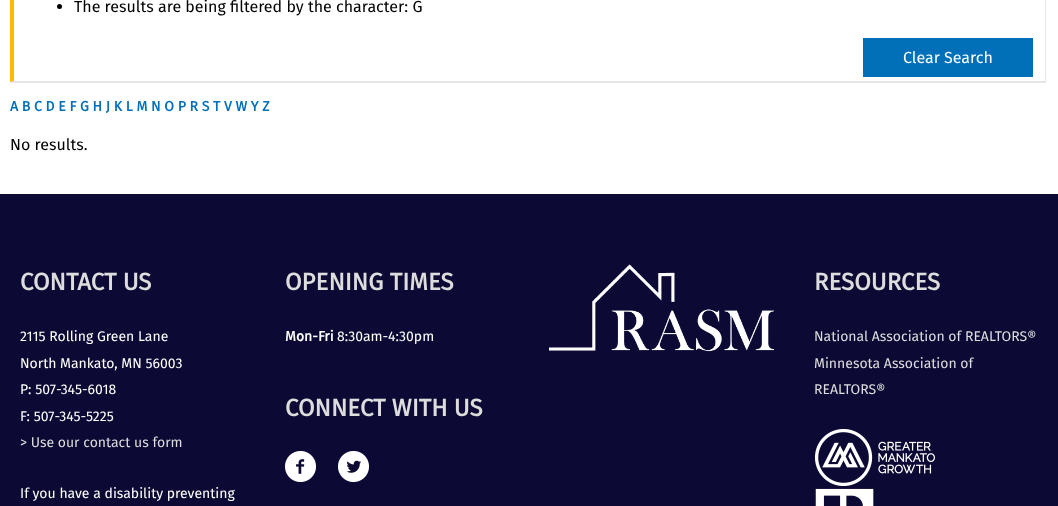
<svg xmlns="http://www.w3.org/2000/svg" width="1058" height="506">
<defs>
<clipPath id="clip1"><rect x="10" y="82" width="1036" height="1"/></clipPath>
</defs>
<rect width="100%" height="100%" fill="#fff"/>
<g clip-path="url(#clip1)">
<rect x="10" y="-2" width="1036" height="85" fill="#0000001a" filter="blur(0.5px)"/>
</g>
<path d="M1046-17v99l-1-1v-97z" fill="#e6e6e6"/>
<path d="M1046 82h-1036l4-1h1031z" fill="#0000001a"/>
<path d="M10 82v-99l4 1v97z" fill="#ffba00"/>
<circle cx="59.5" cy="6.5" r="2.5" fill="#000"/>
<text x="74" y="12" style="font-family:Fira Sans;font-size:16px;fill:#000">The results are being filtered by the character: G</text>
<rect x="863" y="38" width="170" height="39" fill="#0170b9"/>
<text x="903" y="63" style="font-family:Fira Sans;font-size:16px;fill:#fff">Clear Search</text>
<text x="10" y="111" style="font-family:Fira Sans;font-size:14px;font-weight:bold;fill:#0170b9">A B C D E F G H J K L M N O P R S T V W Y Z</text>
<text x="10" y="150" style="font-family:Fira Sans;font-size:16px;fill:#000">No results.</text>
<rect y="194" width="1058" height="312" fill="#0c0a34"/>
<text x="20" y="290" style="font-family:Fira Sans;font-size:24px;font-weight:bold;fill:#ddd">CONTACT US</text>
<text x="20" y="341" style="font-family:Fira Sans;font-size:14px;fill:#fff">2115 Rolling Green Lane</text>
<text x="20" y="368" style="font-family:Fira Sans;font-size:14px;fill:#fff">North Mankato, MN 56003</text>
<text x="20" y="394" style="font-family:Fira Sans;font-size:14px;fill:#fff">P: 507-345-6018</text>
<text x="20" y="421" style="font-family:Fira Sans;font-size:14px;fill:#fff">F: 507-345-5225</text>
<text x="20" y="447" style="font-family:Fira Sans;font-size:14px;fill:#ddd">&gt; Use our contact us form</text>
<text x="20" y="498" style="font-family:Fira Sans;font-size:14px;fill:#fff">If you have a disability preventing</text>
<text x="285" y="290" style="font-family:Fira Sans;font-size:24px;font-weight:bold;fill:#ddd">OPENING TIMES</text>
<text x="285" y="341" style="font-family:Fira Sans;font-size:14px;font-weight:bold;fill:#fff">Mon-Fri</text>
<text x="337" y="341" style="font-family:Fira Sans;font-size:14px;fill:#fff">8:30am-4:30pm</text>
<text x="285" y="416" style="font-family:Fira Sans;font-size:24px;font-weight:bold;fill:#ddd">CONNECT WITH US</text>
<image x="285" y="451" width="31" height="31" href="media/1.png"/>
<image x="338" y="451" width="31" height="31" href="media/2.png"/>
<image x="549" y="264" width="225" height="88" href="media/3.png"/>
<text x="814" y="290" style="font-family:Fira Sans;font-size:24px;font-weight:bold;fill:#ddd">RESOURCES</text>
<text x="814" y="341" style="font-family:Fira Sans;font-size:14px;fill:#ddd">National Association of REALTORS®</text>
<text x="814" y="368" style="font-family:Fira Sans;font-size:14px;fill:#ddd">Minnesota Association of</text>
<text x="814" y="394" style="font-family:Fira Sans;font-size:14px;fill:#ddd">REALTORS®</text>
<image x="815" y="429" width="120" height="57" href="media/4.png"/>
<image x="815" y="488" width="59" height="18" href="media/5.png"/>
</svg>
